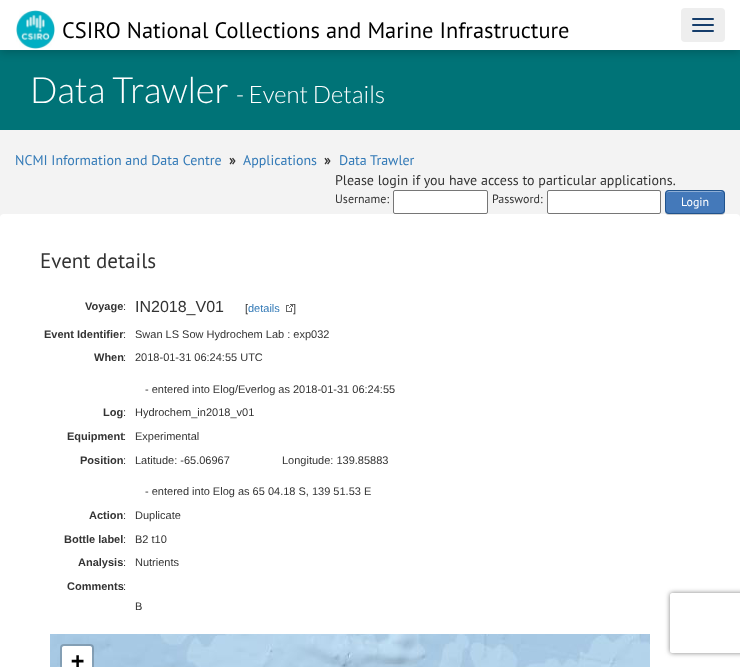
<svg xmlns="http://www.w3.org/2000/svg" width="740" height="667">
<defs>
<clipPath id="clip1"><path d="M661 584h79v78h-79zm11 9h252c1 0 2 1 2 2v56c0 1-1 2-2 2h-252c-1 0-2-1-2-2v-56c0-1 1-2 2-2z" clip-rule="evenodd"/></clipPath>
</defs>
<rect width="100%" height="100%" fill="#f3f3f3"/>
<rect y="50" width="740" height="80" fill="#007377"/>
<rect y="2" width="740" height="50" fill="#00000033" filter="blur(5px)"/>
<rect width="740" height="50" fill="#fff"/>
<image x="16" y="10" width="39" height="39" href="media/1.png"/>
<text x="62" y="38" style="font-family:PT Sans;font-size:22.4px;fill:#000">CSIRO National Collections and Marine Infrastructure</text>
<rect x="681" y="8" width="44" height="34" rx="4" fill="#eee"/>
<rect x="692" y="18" width="22" height="2" rx="1" fill="#153d6b"/>
<rect x="692" y="24" width="22" height="2" rx="1" fill="#153d6b"/>
<rect x="692" y="30" width="22" height="2" rx="1" fill="#153d6b"/>
<text x="30" y="103" style="font-family:Lato;font-size:36px;font-weight:300;fill:#fff">Data Trawler</text>
<text x="236" y="103" style="font-family:Lato;font-size:24px;font-weight:300;fill:#fff">- Event Details</text>
<text x="15" y="165" style="font-family:PT Sans;font-size:14px;fill:#337ab7">NCMI Information and Data Centre</text>
<text x="229" y="165" style="font-family:PT Sans;font-size:14px;font-weight:bold;fill:#333">»</text>
<text x="243" y="165" style="font-family:PT Sans;font-size:14px;fill:#337ab7">Applications</text>
<text x="324" y="165" style="font-family:PT Sans;font-size:14px;font-weight:bold;fill:#333">»</text>
<text x="339" y="165" style="font-family:PT Sans;font-size:14px;fill:#337ab7">Data Trawler</text>
<text x="335" y="185" style="font-family:PT Sans;font-size:14px;fill:#333">Please login if you have access to particular applications.</text>
<text x="335" y="203" style="font-family:PT Sans;font-size:12px;fill:#333">Username:</text>
<rect x="393.5" y="190.5" width="94" height="23" rx="1.5" fill="#fff" stroke="#767676"/>
<text x="492" y="203" style="font-family:PT Sans;font-size:12px;fill:#333">Password:</text>
<rect x="547.5" y="190.5" width="113" height="23" rx="1.5" fill="#fff" stroke="#767676"/>
<rect y="214" width="740" height="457" rx="4" fill="#fff"/>
<rect x="665" y="191" width="60" height="24" rx="4" fill="#00000033" filter="blur(0.5px)"/>
<rect x="665" y="190" width="60" height="24" rx="4" fill="#4479ba"/>
<path d="M669 192h53c1 0 2 1 2 3c0-6-8-4-12-4h-34c-2 0-12-2-12 3c0-1 1-2 3-2zm-3 19v-2z" fill="#8fafd6" fill-rule="evenodd"/>
<rect x="665.5" y="190.5" width="59" height="23" rx="3.5" fill="none" stroke="#20538d"/>
<text x="681" y="206" style="font-family:PT Sans;font-size:12px;fill:#fff">Login</text>
<g clip-path="url(#clip1)">
<rect x="670" y="593" width="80" height="60" rx="2" fill="#808080" filter="blur(2.5px)"/>
</g>
<text x="40" y="268" style="font-family:PT Sans;font-size:21px;fill:#333">Event details</text>
<text x="85" y="310" style="font-family:Liberation Sans;font-size:11px;font-weight:bold;fill:#333">Voyage</text>
<text x="123" y="310" style="font-family:Liberation Sans;font-size:11px;fill:#333">:</text>
<text x="135" y="312" style="font-family:Liberation Sans;font-size:16px;fill:#333">IN2018_V01</text>
<text x="245" y="312" style="font-family:Liberation Sans;font-size:11px;fill:#333">[</text>
<text x="248" y="312" style="font-family:Liberation Sans;font-size:11px;fill:#337ab7">details</text>
<image x="286" y="304" width="7" height="8" href="media/2.png"/>
<text x="293" y="312" style="font-family:Liberation Sans;font-size:11px;fill:#333">]</text>
<text x="44" y="338" style="font-family:Liberation Sans;font-size:11px;font-weight:bold;fill:#333">Event Identifier</text>
<text x="123" y="338" style="font-family:Liberation Sans;font-size:11px;fill:#333">:</text>
<text x="135" y="338" style="font-family:Liberation Sans;font-size:11px;fill:#333">Swan LS Sow Hydrochem Lab : exp032</text>
<text x="94" y="361" style="font-family:Liberation Sans;font-size:11px;font-weight:bold;fill:#333">When</text>
<text x="123" y="361" style="font-family:Liberation Sans;font-size:11px;fill:#333">:</text>
<text x="135" y="361" style="font-family:Liberation Sans;font-size:11px;fill:#333">2018-01-31 06:24:55 UTC</text>
<text x="145" y="393" style="font-family:Liberation Sans;font-size:11px;fill:#333">- entered into Elog/Everlog as 2018-01-31 06:24:55</text>
<text x="103" y="416" style="font-family:Liberation Sans;font-size:11px;font-weight:bold;fill:#333">Log</text>
<text x="123" y="416" style="font-family:Liberation Sans;font-size:11px;fill:#333">:</text>
<text x="135" y="416" style="font-family:Liberation Sans;font-size:11px;fill:#333">Hydrochem_in2018_v01</text>
<text x="67" y="440" style="font-family:Liberation Sans;font-size:11px;font-weight:bold;fill:#333">Equipment</text>
<text x="123" y="440" style="font-family:Liberation Sans;font-size:11px;fill:#333">:</text>
<text x="135" y="440" style="font-family:Liberation Sans;font-size:11px;fill:#333">Experimental</text>
<text x="80" y="464" style="font-family:Liberation Sans;font-size:11px;font-weight:bold;fill:#333">Position</text>
<text x="123" y="464" style="font-family:Liberation Sans;font-size:11px;fill:#333">:</text>
<text x="135" y="464" style="font-family:Liberation Sans;font-size:11px;fill:#333">Latitude: -65.06967</text>
<text x="282" y="464" style="font-family:Liberation Sans;font-size:11px;fill:#333">Longitude: 139.85883</text>
<text x="145" y="495" style="font-family:Liberation Sans;font-size:11px;fill:#333">- entered into Elog as 65 04.18 S, 139 51.53 E</text>
<text x="89" y="519" style="font-family:Liberation Sans;font-size:11px;font-weight:bold;fill:#333">Action</text>
<text x="123" y="519" style="font-family:Liberation Sans;font-size:11px;fill:#333">:</text>
<text x="135" y="519" style="font-family:Liberation Sans;font-size:11px;fill:#333">Duplicate</text>
<text x="64" y="543" style="font-family:Liberation Sans;font-size:11px;font-weight:bold;fill:#333">Bottle label</text>
<text x="123" y="543" style="font-family:Liberation Sans;font-size:11px;fill:#333">:</text>
<text x="135" y="543" style="font-family:Liberation Sans;font-size:11px;fill:#333">B2 t10</text>
<text x="78" y="566" style="font-family:Liberation Sans;font-size:11px;font-weight:bold;fill:#333">Analysis</text>
<text x="123" y="566" style="font-family:Liberation Sans;font-size:11px;fill:#333">:</text>
<text x="135" y="566" style="font-family:Liberation Sans;font-size:11px;fill:#333">Nutrients</text>
<text x="67" y="590" style="font-family:Liberation Sans;font-size:11px;font-weight:bold;fill:#333">Comments</text>
<text x="123" y="590" style="font-family:Liberation Sans;font-size:11px;fill:#333">:</text>
<text x="135" y="610" style="font-family:Liberation Sans;font-size:11px;fill:#333">B</text>
<image x="50" y="634" width="79" height="33" href="media/3.png"/>
<image x="129" y="634" width="256" height="33" href="media/4.png"/>
<image x="385" y="634" width="256" height="33" href="media/5.png"/>
<image x="641" y="634" width="9" height="33" href="media/6.png"/>
<rect x="61" y="645" width="32" height="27" rx="3" fill="none" stroke="#00000033" stroke-width="2"/>
<path d="M64 646h26c1 0 2 1 2 2v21h-30v-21c0-1 1-2 2-2z" fill="#fff"/>
<text x="71" y="668" style="font-family:DejaVu Sans Mono;font-size:22px;font-weight:bold;fill:#000">+</text>
</svg>
